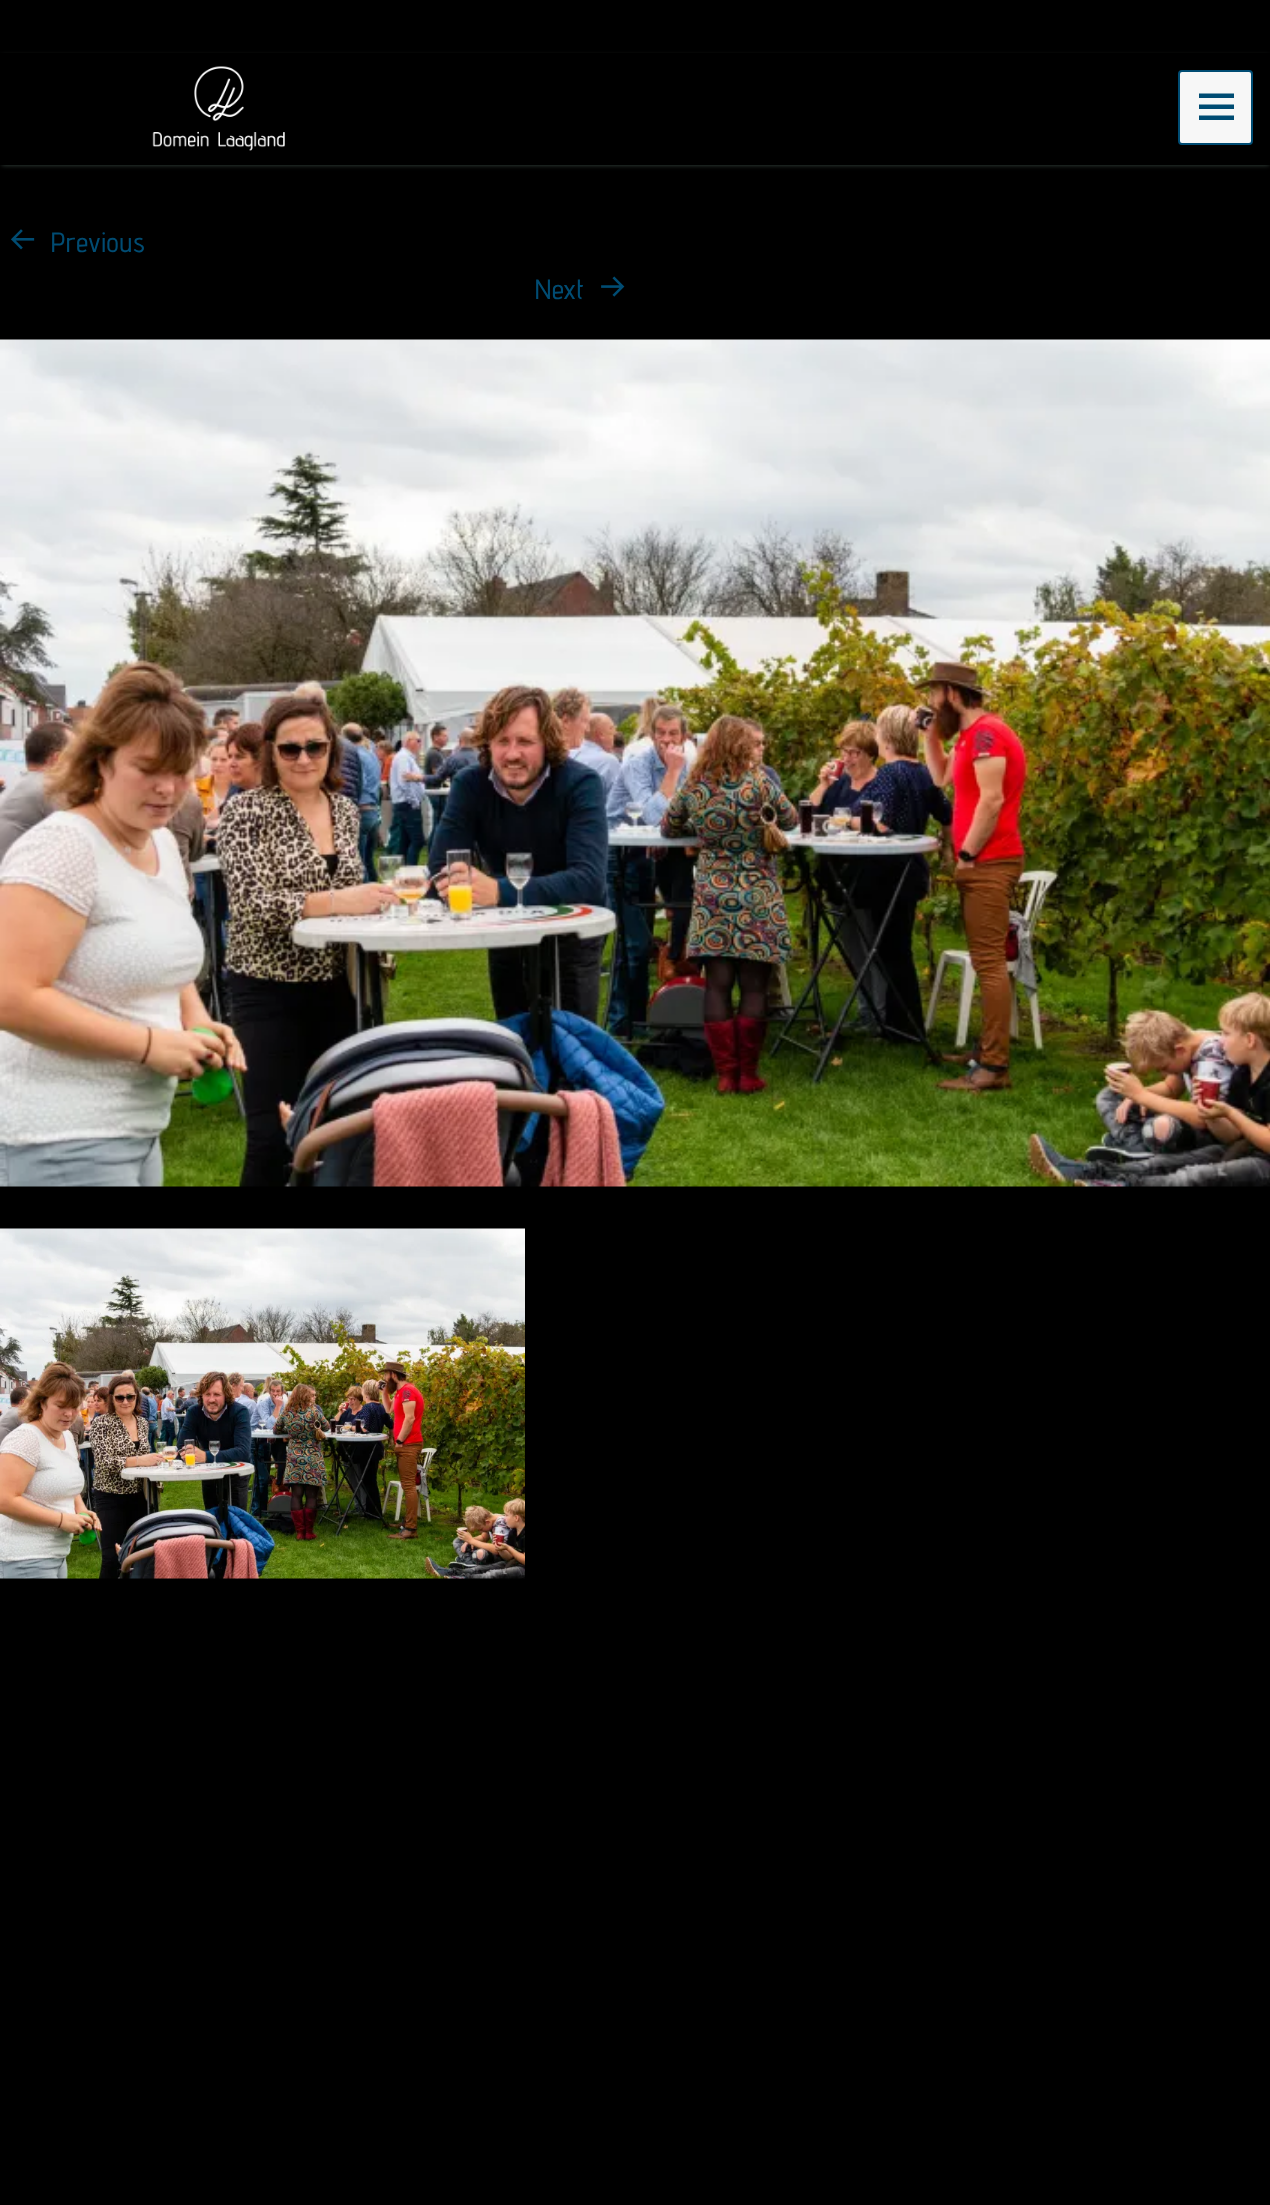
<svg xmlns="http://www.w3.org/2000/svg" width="1270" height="2205">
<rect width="100%" height="100%" fill="#000"/>
<rect x="2" y="56" width="1267" height="109" fill="#3c4b44" filter="blur(2.5px)"/>
<rect y="53" width="1270" height="112" fill="#000"/>
<image x="152" y="66" width="133" height="85" href="media/1.png"/>
<rect x="1179" y="71" width="73" height="73" rx="3" fill="#f7f7f7" stroke="#004c73" stroke-width="2"/>
<path d="M1199 120v-4.5h35v4.5zm0-26.5h35v4.5h-35zm0 15.5v-4.5h35v4.5z" fill="#004c73"/>
<image x="11" y="229" width="24" height="21" href="media/2.png"/>
<text x="51" y="252" style="font-family:Advent Pro;font-size:28px;font-weight:500;letter-spacing:0.5px;fill:#004c73">Previous</text>
<text x="535" y="299" style="font-family:Advent Pro;font-size:28px;font-weight:500;letter-spacing:0.5px;fill:#004c73">Next</text>
<image x="601" y="276" width="24" height="21" href="media/3.png"/>
<image x="0" y="339" width="1270" height="848" href="media/4.png"/>
<image x="0" y="1228" width="525" height="351" href="media/5.png"/>
</svg>
